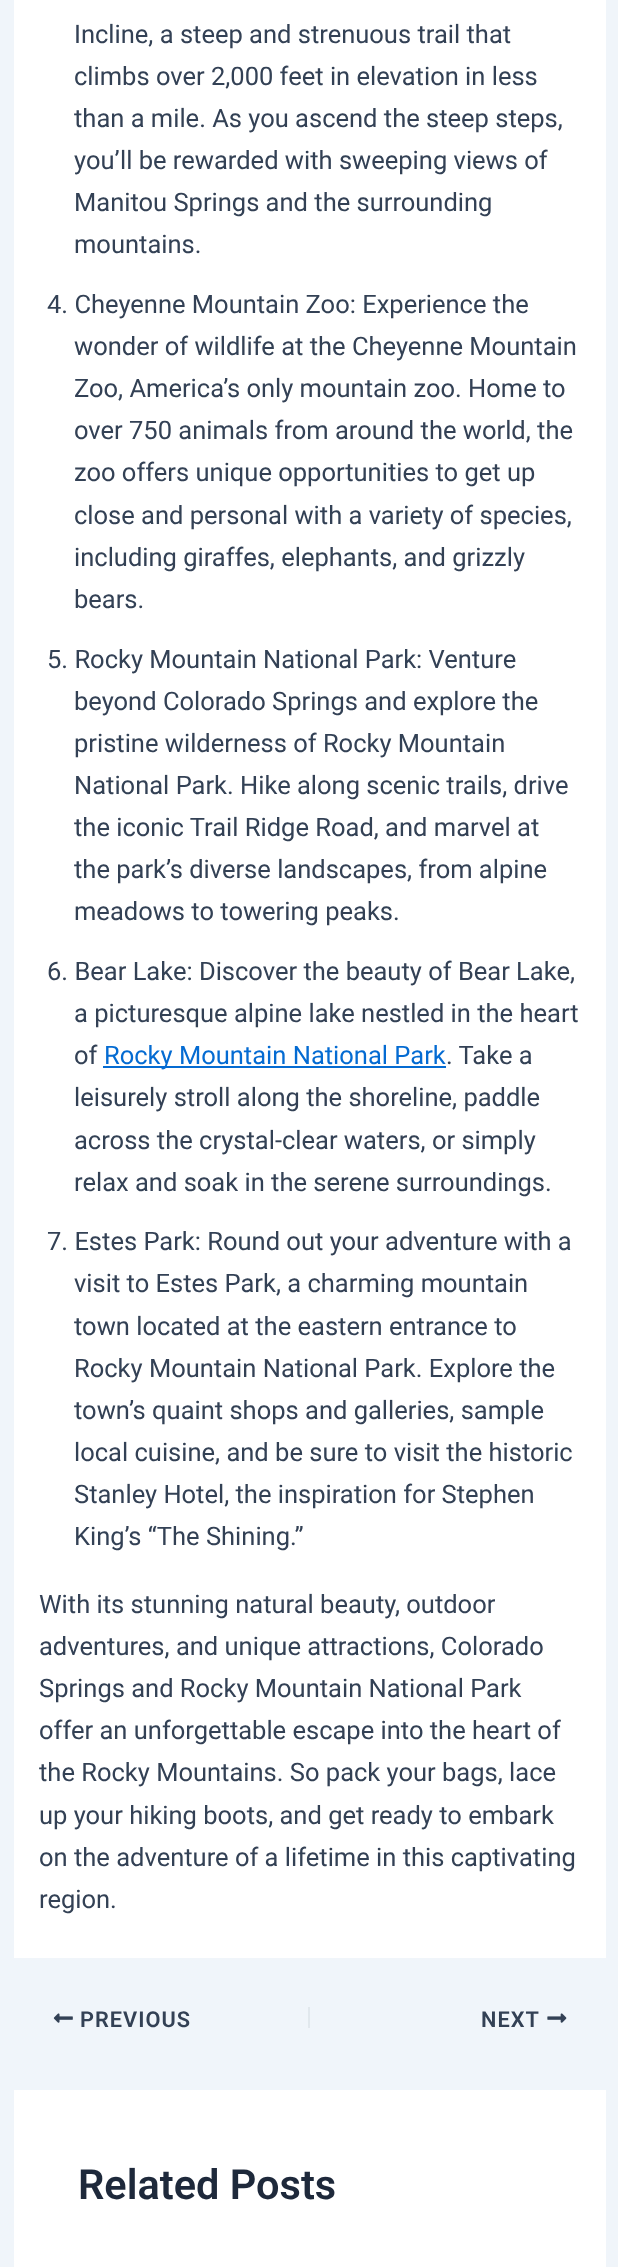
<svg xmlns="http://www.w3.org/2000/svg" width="618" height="2267">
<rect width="100%" height="100%" fill="#f0f5fa"/>
<rect x="14" width="592" height="1958" fill="#fff"/>
<text x="74" y="43" style="font-family:Roboto;font-size:25.5px;fill:#334155">Incline, a steep and strenuous trail that</text>
<text x="74" y="85" style="font-family:Roboto;font-size:25.5px;fill:#334155">climbs over 2,000 feet in elevation in less</text>
<text x="74" y="127" style="font-family:Roboto;font-size:25.5px;fill:#334155">than a mile. As you ascend the steep steps,</text>
<text x="74" y="169" style="font-family:Roboto;font-size:25.5px;fill:#334155">you’ll be rewarded with sweeping views of</text>
<text x="74" y="211" style="font-family:Roboto;font-size:25.5px;fill:#334155">Manitou Springs and the surrounding</text>
<text x="74" y="253" style="font-family:Roboto;font-size:25.5px;fill:#334155">mountains.</text>
<text x="47" y="313" style="font-family:Roboto;font-size:25.5px;fill:#334155">4. Cheyenne Mountain Zoo: Experience the</text>
<text x="74" y="355" style="font-family:Roboto;font-size:25.5px;fill:#334155">wonder of wildlife at the Cheyenne Mountain</text>
<text x="74" y="397" style="font-family:Roboto;font-size:25.5px;fill:#334155">Zoo, America’s only mountain zoo. Home to</text>
<text x="74" y="439" style="font-family:Roboto;font-size:25.5px;fill:#334155">over 750 animals from around the world, the</text>
<text x="74" y="481" style="font-family:Roboto;font-size:25.5px;fill:#334155">zoo offers unique opportunities to get up</text>
<text x="74" y="524" style="font-family:Roboto;font-size:25.5px;fill:#334155">close and personal with a variety of species,</text>
<text x="74" y="566" style="font-family:Roboto;font-size:25.5px;fill:#334155">including giraffes, elephants, and grizzly</text>
<text x="74" y="608" style="font-family:Roboto;font-size:25.5px;fill:#334155">bears.</text>
<text x="47" y="668" style="font-family:Roboto;font-size:25.5px;fill:#334155">5. Rocky Mountain National Park: Venture</text>
<text x="74" y="710" style="font-family:Roboto;font-size:25.5px;fill:#334155">beyond Colorado Springs and explore the</text>
<text x="74" y="752" style="font-family:Roboto;font-size:25.5px;fill:#334155">pristine wilderness of Rocky Mountain</text>
<text x="74" y="794" style="font-family:Roboto;font-size:25.5px;fill:#334155">National Park. Hike along scenic trails, drive</text>
<text x="74" y="836" style="font-family:Roboto;font-size:25.5px;fill:#334155">the iconic Trail Ridge Road, and marvel at</text>
<text x="74" y="878" style="font-family:Roboto;font-size:25.5px;fill:#334155">the park’s diverse landscapes, from alpine</text>
<text x="74" y="920" style="font-family:Roboto;font-size:25.5px;fill:#334155">meadows to towering peaks.</text>
<text x="47" y="980" style="font-family:Roboto;font-size:25.5px;fill:#334155">6. Bear Lake: Discover the beauty of Bear Lake,</text>
<text x="74" y="1022" style="font-family:Roboto;font-size:25.5px;fill:#334155">a picturesque alpine lake nestled in the heart</text>
<text x="74" y="1064" style="font-family:Roboto;font-size:25.5px;fill:#334155">of</text>
<rect x="103" y="1066" width="343" height="2" fill="#046bd2"/>
<text x="104" y="1064" style="font-family:Roboto;font-size:25.5px;fill:#046bd2">Rocky Mountain National Park</text>
<text x="446" y="1064" style="font-family:Roboto;font-size:25.5px;fill:#334155">. Take a</text>
<text x="74" y="1106" style="font-family:Roboto;font-size:25.5px;fill:#334155">leisurely stroll along the shoreline, paddle</text>
<text x="74" y="1149" style="font-family:Roboto;font-size:25.5px;fill:#334155">across the crystal-clear waters, or simply</text>
<text x="74" y="1191" style="font-family:Roboto;font-size:25.5px;fill:#334155">relax and soak in the serene surroundings.</text>
<text x="47" y="1250" style="font-family:Roboto;font-size:25.5px;fill:#334155">7. Estes Park: Round out your adventure with a</text>
<text x="74" y="1292" style="font-family:Roboto;font-size:25.5px;fill:#334155">visit to Estes Park, a charming mountain</text>
<text x="74" y="1335" style="font-family:Roboto;font-size:25.5px;fill:#334155">town located at the eastern entrance to</text>
<text x="74" y="1377" style="font-family:Roboto;font-size:25.5px;fill:#334155">Rocky Mountain National Park. Explore the</text>
<text x="74" y="1419" style="font-family:Roboto;font-size:25.5px;fill:#334155">town’s quaint shops and galleries, sample</text>
<text x="74" y="1461" style="font-family:Roboto;font-size:25.5px;fill:#334155">local cuisine, and be sure to visit the historic</text>
<text x="74" y="1503" style="font-family:Roboto;font-size:25.5px;fill:#334155">Stanley Hotel, the inspiration for Stephen</text>
<text x="74" y="1545" style="font-family:Roboto;font-size:25.5px;fill:#334155">King’s “The Shining.”</text>
<text x="39" y="1613" style="font-family:Roboto;font-size:25.5px;fill:#334155">With its stunning natural beauty, outdoor</text>
<text x="39" y="1655" style="font-family:Roboto;font-size:25.5px;fill:#334155">adventures, and unique attractions, Colorado</text>
<text x="39" y="1697" style="font-family:Roboto;font-size:25.5px;fill:#334155">Springs and Rocky Mountain National Park</text>
<text x="39" y="1739" style="font-family:Roboto;font-size:25.5px;fill:#334155">offer an unforgettable escape into the heart of</text>
<text x="39" y="1781" style="font-family:Roboto;font-size:25.5px;fill:#334155">the Rocky Mountains. So pack your bags, lace</text>
<text x="39" y="1824" style="font-family:Roboto;font-size:25.5px;fill:#334155">up your hiking boots, and get ready to embark</text>
<text x="39" y="1866" style="font-family:Roboto;font-size:25.5px;fill:#334155">on the adventure of a lifetime in this captivating</text>
<text x="39" y="1908" style="font-family:Roboto;font-size:25.5px;fill:#334155">region.</text>
<image x="53" y="2013" width="20" height="10" href="media/1.png"/>
<text x="80" y="2027" style="font-family:Roboto;font-size:21.75px;font-weight:600;letter-spacing:1px;fill:#334155">PREVIOUS</text>
<rect x="308" y="2007" width="2" height="21" fill="#e1e8ed"/>
<text x="481" y="2027" style="font-family:Roboto;font-size:21.75px;font-weight:600;letter-spacing:1px;fill:#334155">NEXT</text>
<image x="547" y="2013" width="20" height="10" href="media/2.png"/>
<rect x="14" y="2090" width="592" height="177" fill="#fff"/>
<text x="78" y="2199" style="font-family:Roboto;font-size:41.5px;font-weight:600;fill:#1e293b">Related Posts</text>
</svg>
